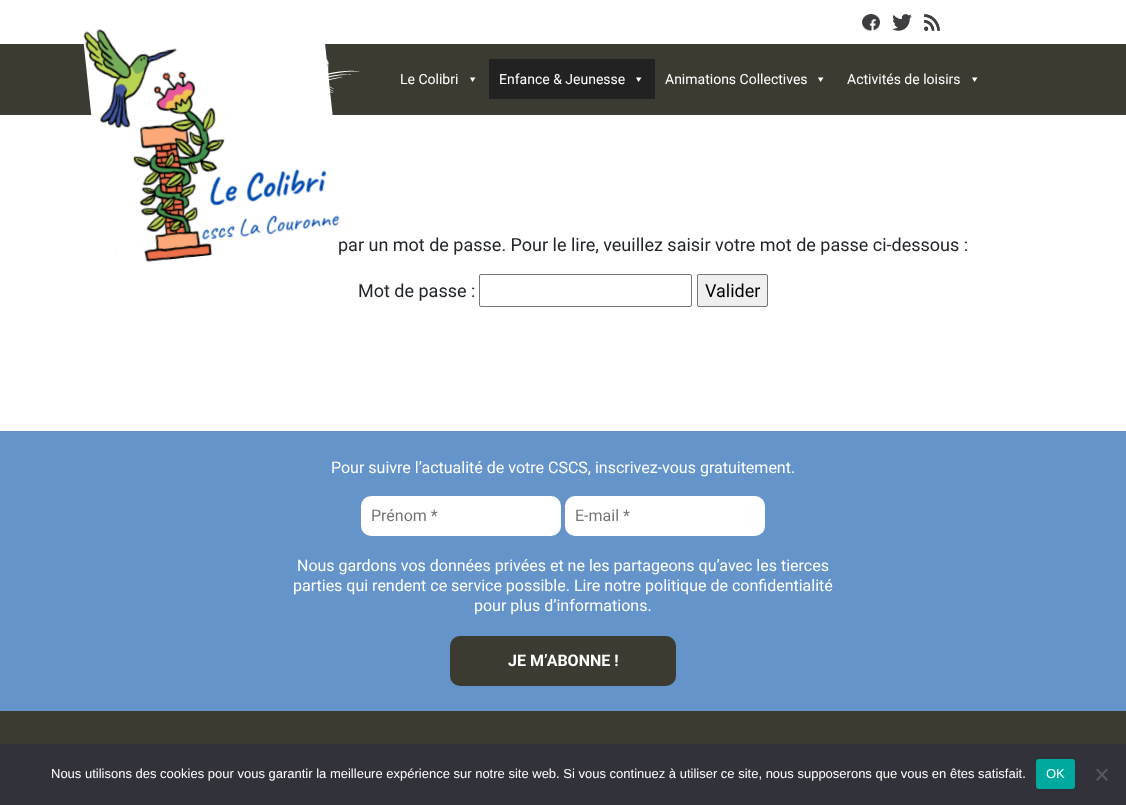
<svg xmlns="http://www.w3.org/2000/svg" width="1126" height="805">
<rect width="100%" height="100%" fill="#fff"/>
<image x="862" y="14" width="18" height="17" href="media/1.png"/>
<image x="892" y="14" width="20" height="17" href="media/2.png"/>
<image x="924" y="14" width="16" height="17" href="media/3.png"/>
<rect y="44" width="1126" height="71" fill="#3c3b31"/>
<image x="326" y="59" width="34" height="34" href="media/5.png"/>
<text x="338" y="251" style="font-family:Roboto;font-size:18px;fill:#212529">par un mot de passe. Pour le lire, veuillez saisir votre mot de passe ci-dessous :</text>
<image x="83" y="29" width="260" height="233" href="media/4.png"/>
<text x="400" y="84" style="font-family:Roboto;font-size:14px;fill:#fff">Le Colibri</text>
<path d="M475.5 77.5l-3 4.5l-2.5-4.5z" fill="#fff"/>
<rect x="489" y="59" width="166" height="40" fill="#222"/>
<text x="499" y="84" style="font-family:Roboto;font-size:14px;fill:#fff">Enfance &amp; Jeunesse</text>
<path d="M641.5 77.5l-3 4.5l-2.5-4.5z" fill="#fff"/>
<text x="665" y="84" style="font-family:Roboto;font-size:14px;fill:#fff">Animations Collectives</text>
<path d="M823.5 77.5l-3 4.5l-2.5-4.5z" fill="#fff"/>
<text x="847" y="84" style="font-family:Roboto;font-size:14px;fill:#fff">Activités de loisirs</text>
<path d="M977.5 77.5l-3 4.5l-2.5-4.5z" fill="#fff"/>
<text x="358" y="297" style="font-family:Roboto;font-size:18px;fill:#212529">Mot de passe :</text>
<rect x="479.5" y="274.5" width="212" height="32" rx="1.5" fill="none" stroke="#767676"/>
<rect x="697.5" y="274.5" width="70" height="32" rx="1.5" fill="#efefef" stroke="#767676"/>
<text x="705" y="297" style="font-family:Roboto;font-size:18px;fill:#000">Valider</text>
<rect y="431" width="1126" height="280" fill="#6494c9"/>
<text x="331" y="473" style="font-family:Roboto;font-size:16px;fill:#fff">Pour suivre l’actualité de votre CSCS, inscrivez-vous gratuitement.</text>
<rect x="361" y="496" width="200" height="40" rx="10" fill="#fff"/>
<text x="371" y="521" style="font-family:Roboto;font-size:16px;fill:#757575">Prénom *</text>
<rect x="565" y="496" width="200" height="40" rx="10" fill="#fff"/>
<text x="575" y="521" style="font-family:Roboto;font-size:16px;fill:#757575">E-mail *</text>
<text x="297" y="571" style="font-family:Roboto;font-size:16px;fill:#fff">Nous gardons vos données privées et ne les partageons qu’avec les tierces</text>
<text x="293" y="591" style="font-family:Roboto;font-size:16px;fill:#fff">parties qui rendent ce service possible. Lire notre politique de confidentialité</text>
<text x="474" y="611" style="font-family:Roboto;font-size:16px;fill:#fff">pour plus d’informations.</text>
<rect x="450" y="636" width="226" height="50" rx="10" fill="#3c3b31"/>
<text x="508" y="666" style="font-family:Roboto;font-size:16px;font-weight:bold;fill:#fff">JE M’ABONNE !</text>
<rect y="711" width="1126" height="33" fill="#3c3b31"/>
<rect y="744" width="1126" height="61" fill="#32323a"/>
<text x="51" y="778" style="font-family:Liberation Sans;font-size:13px;fill:#fff">Nous utilisons des cookies pour vous garantir la meilleure expérience sur notre site web. Si vous continuez à utiliser ce site, nous supposerons que vous en êtes satisfait.</text>
<rect x="1036" y="759" width="39" height="30" rx="3" fill="#00a99d"/>
<text x="1046" y="778" style="font-family:Liberation Sans;font-size:13px;fill:#fff">OK</text>
<path d="M1106.5 768.5l1.5 1.5l-10.5 11l-1.5-1.5z" fill="#59595d"/>
<path d="M1096 770l1.5-1.5l10.5 11l-1.5 1.5z" fill="#59595d"/>
</svg>
